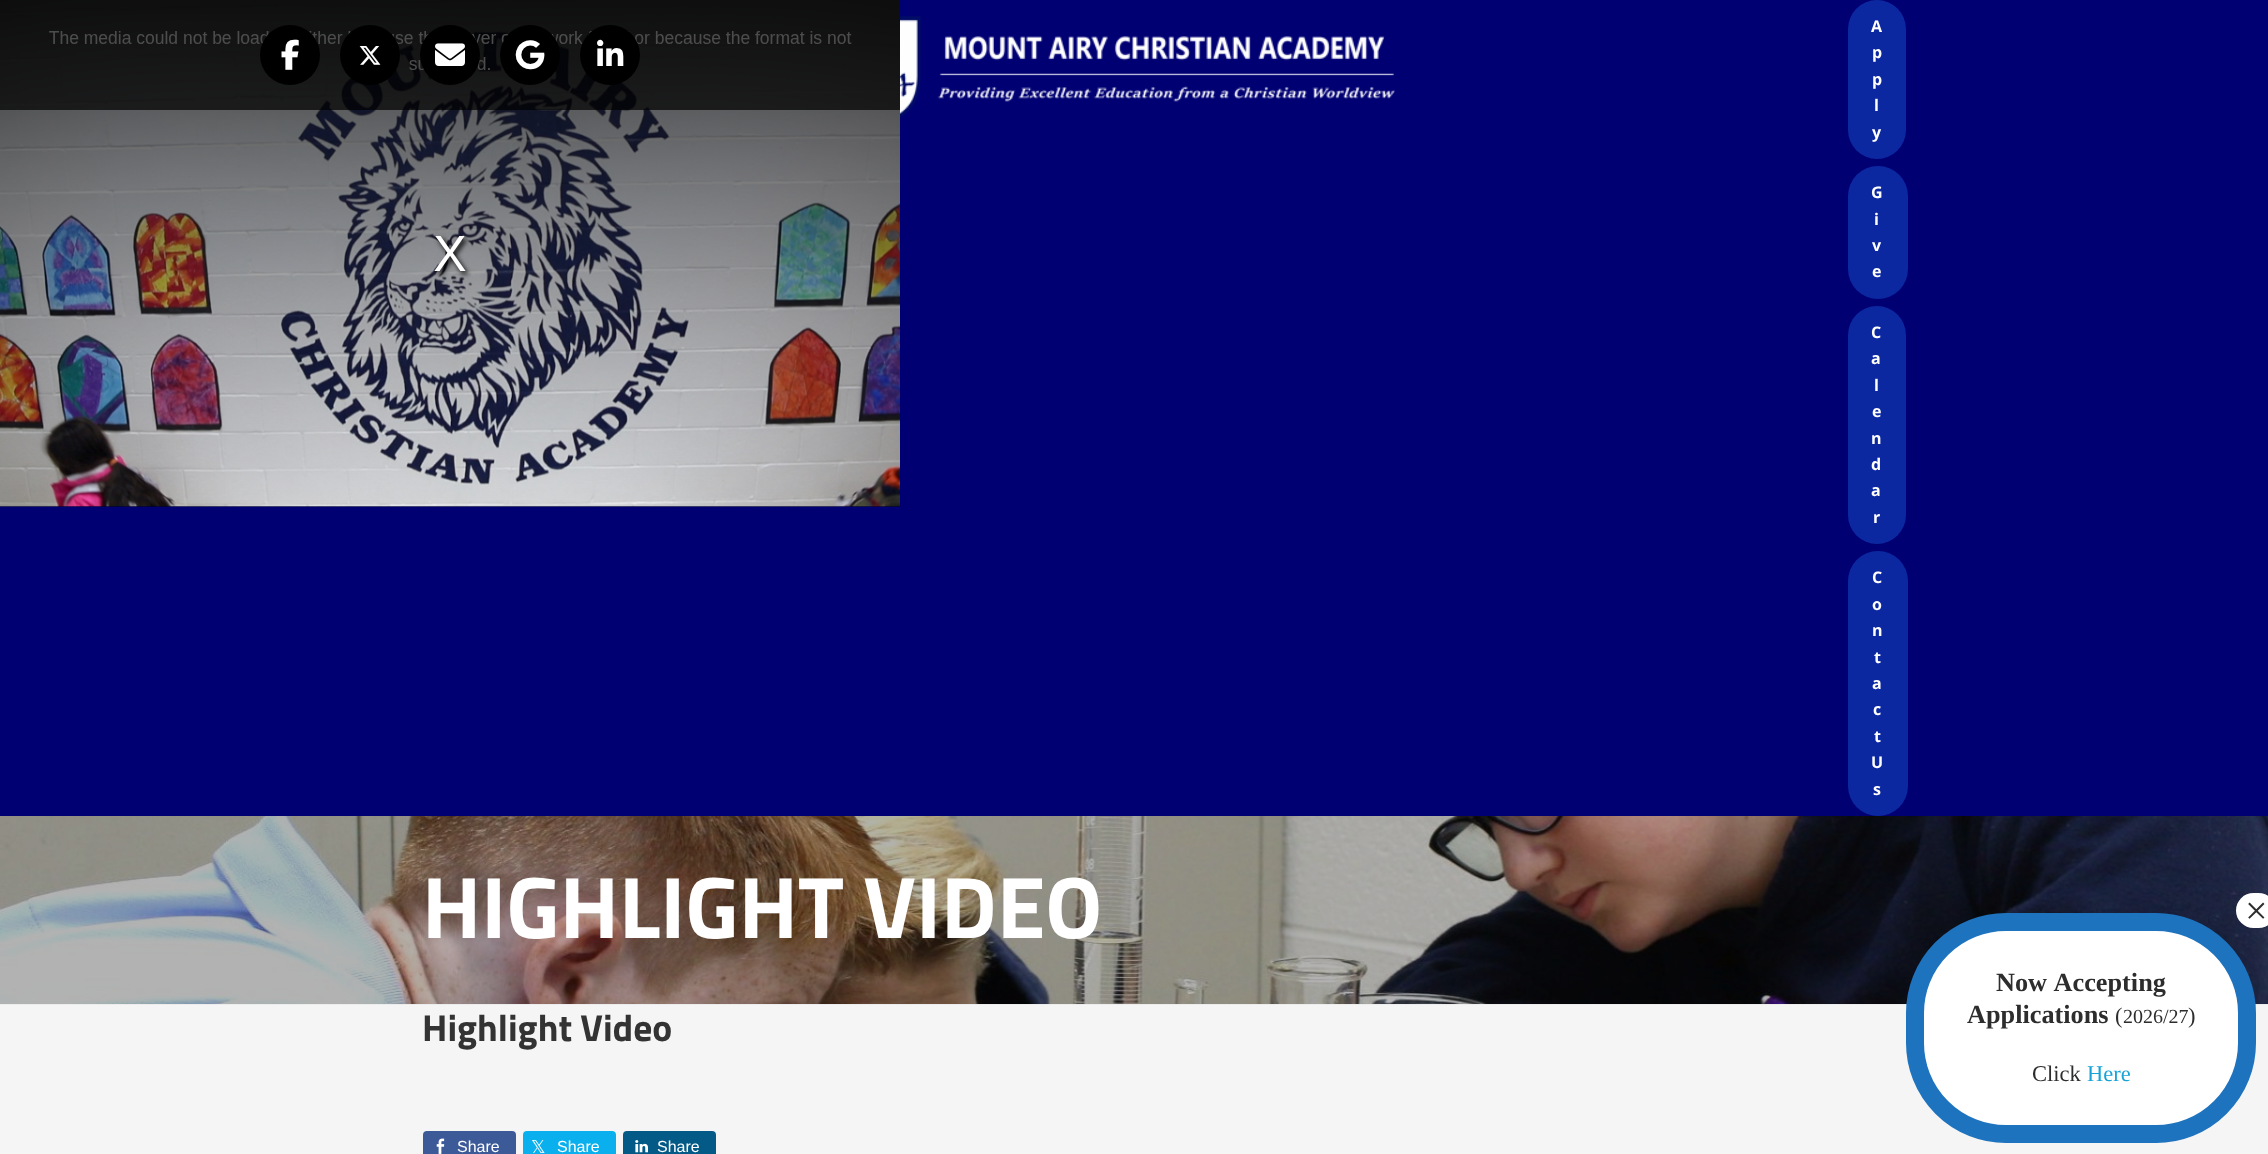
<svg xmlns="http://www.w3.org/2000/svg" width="2268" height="1154">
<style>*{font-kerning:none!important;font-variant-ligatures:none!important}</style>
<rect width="100%" height="100%" fill="#fff"/>
<rect width="2268" height="816" fill="#010073"/>
<image x="900" y="16" width="495" height="103" href="media/1.png"/>
<rect x="1848" width="58" height="159" rx="29" fill="#0c28a1"/>
<text x="1871" y="32" style="font-family:Open Sans;font-size:16px;font-weight:bold;fill:#fff">A</text>
<text x="1872" y="58" style="font-family:Open Sans;font-size:16px;font-weight:bold;fill:#fff">p</text>
<text x="1872" y="85" style="font-family:Open Sans;font-size:16px;font-weight:bold;fill:#fff">p</text>
<text x="1874" y="111" style="font-family:Open Sans;font-size:16px;font-weight:bold;fill:#fff">l</text>
<text x="1872" y="138" style="font-family:Open Sans;font-size:16px;font-weight:bold;fill:#fff">y</text>
<rect x="1848" y="166" width="60" height="133" rx="30" fill="#0c28a1"/>
<text x="1871" y="198" style="font-family:Open Sans;font-size:16px;font-weight:bold;fill:#fff">G</text>
<text x="1874" y="225" style="font-family:Open Sans;font-size:16px;font-weight:bold;fill:#fff">i</text>
<text x="1872" y="251" style="font-family:Open Sans;font-size:16px;font-weight:bold;fill:#fff">v</text>
<text x="1872" y="277" style="font-family:Open Sans;font-size:16px;font-weight:bold;fill:#fff">e</text>
<rect x="1848" y="306" width="58" height="238" rx="29" fill="#0c28a1"/>
<text x="1871" y="338" style="font-family:Open Sans;font-size:16px;font-weight:bold;fill:#fff">C</text>
<text x="1871" y="364" style="font-family:Open Sans;font-size:16px;font-weight:bold;fill:#fff">a</text>
<text x="1874" y="391" style="font-family:Open Sans;font-size:16px;font-weight:bold;fill:#fff">l</text>
<text x="1872" y="417" style="font-family:Open Sans;font-size:16px;font-weight:bold;fill:#fff">e</text>
<text x="1871" y="444" style="font-family:Open Sans;font-size:16px;font-weight:bold;fill:#fff">n</text>
<text x="1871" y="470" style="font-family:Open Sans;font-size:16px;font-weight:bold;fill:#fff">d</text>
<text x="1871" y="496" style="font-family:Open Sans;font-size:16px;font-weight:bold;fill:#fff">a</text>
<text x="1873" y="523" style="font-family:Open Sans;font-size:16px;font-weight:bold;fill:#fff">r</text>
<rect x="1848" y="551" width="60" height="265" rx="30" fill="#0c28a1"/>
<text x="1872" y="583" style="font-family:Open Sans;font-size:16px;font-weight:bold;fill:#fff">C</text>
<text x="1872" y="610" style="font-family:Open Sans;font-size:16px;font-weight:bold;fill:#fff">o</text>
<text x="1872" y="636" style="font-family:Open Sans;font-size:16px;font-weight:bold;fill:#fff">n</text>
<text x="1874" y="663" style="font-family:Open Sans;font-size:16px;font-weight:bold;fill:#fff">t</text>
<text x="1872" y="689" style="font-family:Open Sans;font-size:16px;font-weight:bold;fill:#fff">a</text>
<text x="1873" y="715" style="font-family:Open Sans;font-size:16px;font-weight:bold;fill:#fff">c</text>
<text x="1874" y="742" style="font-family:Open Sans;font-size:16px;font-weight:bold;fill:#fff">t</text>
<text x="1871" y="768" style="font-family:Open Sans;font-size:16px;font-weight:bold;fill:#fff">U</text>
<text x="1873" y="795" style="font-family:Open Sans;font-size:16px;font-weight:bold;fill:#fff">s</text>
<image x="0" y="816" width="2268" height="188" href="media/2.png"/>
<text x="422" y="938" style="font-family:Titillium Web;font-size:87.5px;font-weight:bold;fill:#fff">HIGHLIGHT VIDEO</text>
<rect y="1005" width="2268" height="149" fill="#f5f5f5"/>
<rect y="1004" width="2268" height="1" fill="#ececec"/>
<text x="422" y="1041" style="font-family:Titillium Web;font-size:37.5px;font-weight:bold;fill:#333">Highlight Video</text>
<image x="0" y="0" width="900" height="507" href="media/3.png"/>
<rect x="423" y="1131" width="93" height="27" rx="4" fill="#3d5a98"/>
<image x="436" y="1138" width="9" height="16" href="media/4.png"/>
<text x="457" y="1152" style="font-family:Liberation Sans;font-size:16px;fill:#fff">Share</text>
<rect x="523" y="1131" width="93" height="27" rx="4" fill="#09b0ed"/>
<text x="531" y="1153" style="font-family:DejaVu Sans;font-size:18px;fill:#fff">𝕏</text>
<text x="557" y="1152" style="font-family:Liberation Sans;font-size:16px;fill:#fff">Share</text>
<rect x="623" y="1131" width="93" height="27" rx="4" fill="#035a87"/>
<image x="635" y="1140" width="13" height="13" href="media/5.png"/>
<text x="657" y="1152" style="font-family:Liberation Sans;font-size:16px;fill:#fff">Share</text>
<rect x="1915" y="922" width="332" height="212" rx="91" fill="#fff" stroke="#1e73be" stroke-width="18"/>
<rect x="2236" y="893" width="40" height="35" rx="17.5" fill="#fff"/>
<text x="2245" y="924" style="font-family:Liberation Serif;font-size:40px;fill:#2d2d2d">×</text>
<text x="1996" y="991" style="font-family:Liberation Serif;font-size:26.25px;font-weight:bold;fill:#2d2d2d">Now Accepting</text>
<text x="1967" y="1023" style="font-family:Liberation Serif;font-size:26.25px;font-weight:bold;fill:#2d2d2d">Applications</text>
<text x="2115" y="1023" style="font-family:Liberation Serif;font-size:22.5px;fill:#2d2d2d">(</text>
<text x="2123" y="1023" style="font-family:Liberation Serif;font-size:20px;fill:#2d2d2d">2026/27</text>
<text x="2188" y="1023" style="font-family:Liberation Serif;font-size:22.5px;fill:#2d2d2d">)</text>
<text x="2032" y="1081" style="font-family:Liberation Serif;font-size:22.5px;fill:#2d2d2d">Click</text>
<text x="2087" y="1081" style="font-family:Liberation Serif;font-size:22.5px;fill:#18a3d6">Here</text>
</svg>
